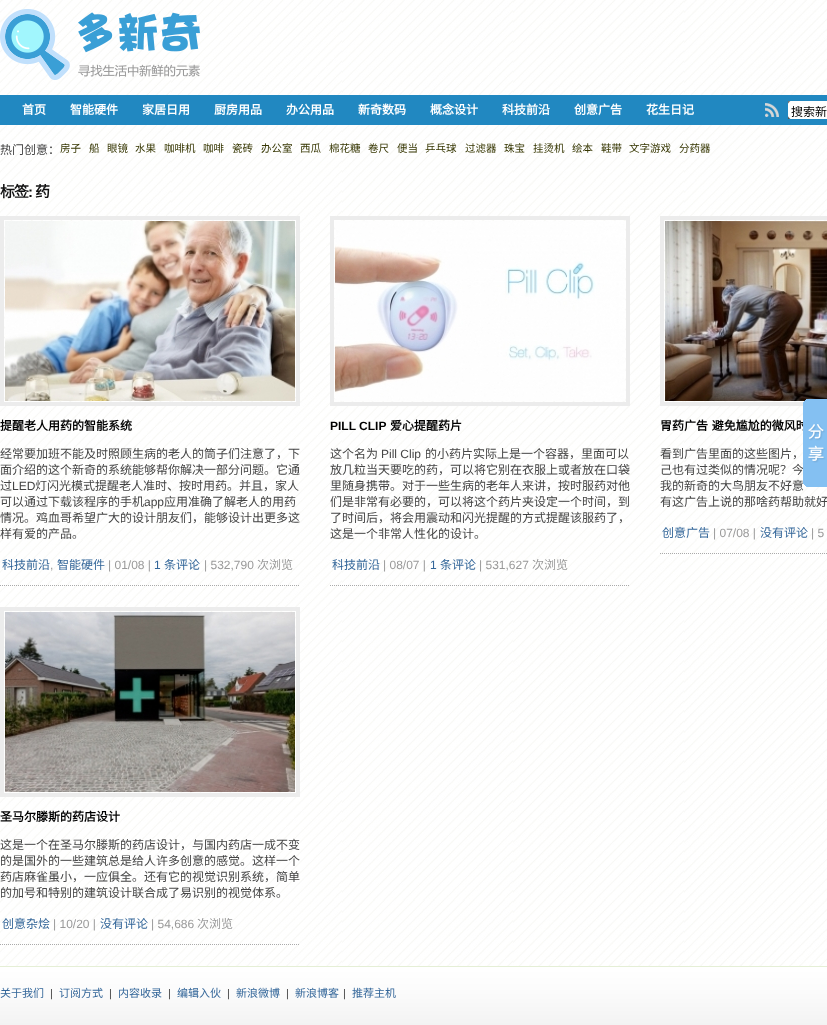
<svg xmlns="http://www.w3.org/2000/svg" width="827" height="1025">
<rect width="100%" height="100%" fill="#fff"/>
<image x="0" y="0" width="827" height="966" href="media/1.png"/>
<image x="0" y="9" width="200" height="71" href="media/2.png"/>
<rect y="95" width="827" height="30" fill="#2188c1"/>
<text x="22" y="114" style="font-family:Noto Sans CJK SC;font-size:12px;font-weight:bold;fill:#fff">首页</text>
<text x="70" y="114" style="font-family:Noto Sans CJK SC;font-size:12px;font-weight:bold;fill:#fff">智能硬件</text>
<text x="142" y="114" style="font-family:Noto Sans CJK SC;font-size:12px;font-weight:bold;fill:#fff">家居日用</text>
<text x="214" y="114" style="font-family:Noto Sans CJK SC;font-size:12px;font-weight:bold;fill:#fff">厨房用品</text>
<text x="286" y="114" style="font-family:Noto Sans CJK SC;font-size:12px;font-weight:bold;fill:#fff">办公用品</text>
<text x="358" y="114" style="font-family:Noto Sans CJK SC;font-size:12px;font-weight:bold;fill:#fff">新奇数码</text>
<text x="430" y="114" style="font-family:Noto Sans CJK SC;font-size:12px;font-weight:bold;fill:#fff">概念设计</text>
<text x="502" y="114" style="font-family:Noto Sans CJK SC;font-size:12px;font-weight:bold;fill:#fff">科技前沿</text>
<text x="574" y="114" style="font-family:Noto Sans CJK SC;font-size:12px;font-weight:bold;fill:#fff">创意广告</text>
<text x="646" y="114" style="font-family:Noto Sans CJK SC;font-size:12px;font-weight:bold;fill:#fff">花生日记</text>
<image x="765" y="103" width="14" height="14" href="media/3.png"/>
<image x="788" y="101" width="39" height="18" href="media/4.png"/>
<text x="791" y="116" style="font-family:Noto Sans CJK SC;font-size:12px;fill:#000">搜索新</text>
<text x="0" y="154" style="font-family:Noto Sans CJK SC;font-size:12px;fill:#444">热门创意：</text>
<text x="60" y="152" style="font-family:Noto Sans CJK SC;font-size:10.5px;fill:#373703">房子</text>
<text x="89" y="152" style="font-family:Noto Sans CJK SC;font-size:10.5px;fill:#373703">船</text>
<text x="107" y="152" style="font-family:Noto Sans CJK SC;font-size:10.5px;fill:#373703">眼镜</text>
<text x="135" y="152" style="font-family:Noto Sans CJK SC;font-size:10.5px;fill:#373703">水果</text>
<text x="164" y="152" style="font-family:Noto Sans CJK SC;font-size:10.5px;fill:#373703">咖啡机</text>
<text x="203" y="152" style="font-family:Noto Sans CJK SC;font-size:10.5px;fill:#373703">咖啡</text>
<text x="232" y="152" style="font-family:Noto Sans CJK SC;font-size:10.5px;fill:#373703">瓷砖</text>
<text x="261" y="152" style="font-family:Noto Sans CJK SC;font-size:10.5px;fill:#373703">办公室</text>
<text x="300" y="152" style="font-family:Noto Sans CJK SC;font-size:10.5px;fill:#373703">西瓜</text>
<text x="329" y="152" style="font-family:Noto Sans CJK SC;font-size:10.5px;fill:#373703">棉花糖</text>
<text x="368" y="152" style="font-family:Noto Sans CJK SC;font-size:10.5px;fill:#373703">卷尺</text>
<text x="397" y="152" style="font-family:Noto Sans CJK SC;font-size:10.5px;fill:#373703">便当</text>
<text x="425" y="152" style="font-family:Noto Sans CJK SC;font-size:10.5px;fill:#373703">乒乓球</text>
<text x="465" y="152" style="font-family:Noto Sans CJK SC;font-size:10.5px;fill:#373703">过滤器</text>
<text x="504" y="152" style="font-family:Noto Sans CJK SC;font-size:10.5px;fill:#373703">珠宝</text>
<text x="533" y="152" style="font-family:Noto Sans CJK SC;font-size:10.5px;fill:#373703">挂烫机</text>
<text x="572" y="152" style="font-family:Noto Sans CJK SC;font-size:10.5px;fill:#373703">绘本</text>
<text x="601" y="152" style="font-family:Noto Sans CJK SC;font-size:10.5px;fill:#373703">鞋带</text>
<text x="629" y="152" style="font-family:Noto Sans CJK SC;font-size:10.5px;fill:#373703">文字游戏</text>
<text x="679" y="152" style="font-family:Noto Sans CJK SC;font-size:10.5px;fill:#373703">分药器</text>
<text x="0" y="197" style="font-family:Noto Sans CJK SC;font-size:15px;font-weight:bold;letter-spacing:-1px;fill:#111">标签</text>
<text x="28" y="197" style="font-family:Liberation Sans;font-size:15px;font-weight:bold;letter-spacing:-1px;fill:#111">:</text>
<text x="35" y="197" style="font-family:Noto Sans CJK SC;font-size:15px;font-weight:bold;letter-spacing:-1px;fill:#111">药</text>
<path d="M0 585.5h300" fill="none" stroke="#aaa" stroke-dasharray="1 1"/>
<rect x="2" y="218" width="296" height="186" fill="none" stroke="#ececec" stroke-width="4"/>
<image x="5" y="221" width="290" height="180" href="media/5.png"/>
<text x="0" y="430" style="font-family:Noto Sans CJK SC;font-size:12px;font-weight:bold;fill:#000">提醒老人用药的智能系统</text>
<text x="0" y="458" style="font-family:Noto Sans CJK SC;font-size:12px;fill:#444">经常要加班不能及时照顾生病的老人的筒子们注意了，下</text>
<text x="0" y="474" style="font-family:Noto Sans CJK SC;font-size:12px;fill:#444">面介绍的这个新奇的系统能够帮你解决一部分问题。它通</text>
<text x="0" y="490" style="font-family:Noto Sans CJK SC;font-size:12px;fill:#444">过</text>
<text x="12" y="490" style="font-family:Liberation Sans;font-size:12px;fill:#444">LED</text>
<text x="35" y="490" style="font-family:Noto Sans CJK SC;font-size:12px;fill:#444">灯闪光模式提醒老人准时、按时用药。并且，家人</text>
<text x="0" y="506" style="font-family:Noto Sans CJK SC;font-size:12px;fill:#444">可以通过下载该程序的手机</text>
<text x="144" y="506" style="font-family:Liberation Sans;font-size:12px;fill:#444">app</text>
<text x="164" y="506" style="font-family:Noto Sans CJK SC;font-size:12px;fill:#444">应用准确了解老人的用药</text>
<text x="0" y="522" style="font-family:Noto Sans CJK SC;font-size:12px;fill:#444">情况。鸡血哥希望广大的设计朋友们，能够设计出更多这</text>
<text x="0" y="538" style="font-family:Noto Sans CJK SC;font-size:12px;fill:#444">样有爱的产品。</text>
<text x="2" y="569" style="font-family:Noto Sans CJK SC;font-size:12px;fill:#369">科技前沿</text>
<text x="50" y="569" style="font-family:Liberation Sans;font-size:12px;fill:#999">,</text>
<text x="57" y="569" style="font-family:Noto Sans CJK SC;font-size:12px;fill:#369">智能硬件</text>
<text x="108" y="569" style="font-family:Liberation Sans;font-size:12px;fill:#999">| 01/08 |</text>
<text x="154" y="569" style="font-family:Liberation Sans;font-size:12px;fill:#369">1</text>
<text x="164" y="569" style="font-family:Noto Sans CJK SC;font-size:12px;fill:#369">条评论</text>
<text x="204" y="569" style="font-family:Liberation Sans;font-size:12px;fill:#999">| 532,790</text>
<text x="257" y="569" style="font-family:Noto Sans CJK SC;font-size:12px;fill:#999">次浏览</text>
<path d="M330 585.5h300" fill="none" stroke="#aaa" stroke-dasharray="1 1"/>
<rect x="332" y="218" width="296" height="186" fill="none" stroke="#ececec" stroke-width="4"/>
<image x="335" y="221" width="290" height="180" href="media/6.png"/>
<text x="330" y="430" style="font-family:Liberation Sans;font-size:12px;font-weight:bold;fill:#000">PILL CLIP</text>
<text x="390" y="430" style="font-family:Noto Sans CJK SC;font-size:12px;font-weight:bold;fill:#000">爱心提醒药片</text>
<text x="330" y="458" style="font-family:Noto Sans CJK SC;font-size:12px;fill:#444">这个名为</text>
<text x="381" y="458" style="font-family:Liberation Sans;font-size:12px;fill:#444">Pill Clip</text>
<text x="425" y="458" style="font-family:Noto Sans CJK SC;font-size:12px;fill:#444">的小药片实际上是一个容器，里面可以</text>
<text x="330" y="474" style="font-family:Noto Sans CJK SC;font-size:12px;fill:#444">放几粒当天要吃的药，可以将它别在衣服上或者放在口袋</text>
<text x="330" y="490" style="font-family:Noto Sans CJK SC;font-size:12px;fill:#444">里随身携带。对于一些生病的老年人来讲，按时服药对他</text>
<text x="330" y="506" style="font-family:Noto Sans CJK SC;font-size:12px;fill:#444">们是非常有必要的，可以将这个药片夹设定一个时间，到</text>
<text x="330" y="522" style="font-family:Noto Sans CJK SC;font-size:12px;fill:#444">了时间后，将会用震动和闪光提醒的方式提醒该服药了，</text>
<text x="330" y="538" style="font-family:Noto Sans CJK SC;font-size:12px;fill:#444">这是一个非常人性化的设计。</text>
<text x="332" y="569" style="font-family:Noto Sans CJK SC;font-size:12px;fill:#369">科技前沿</text>
<text x="383" y="569" style="font-family:Liberation Sans;font-size:12px;fill:#999">| 08/07 |</text>
<text x="430" y="569" style="font-family:Liberation Sans;font-size:12px;fill:#369">1</text>
<text x="440" y="569" style="font-family:Noto Sans CJK SC;font-size:12px;fill:#369">条评论</text>
<text x="479" y="569" style="font-family:Liberation Sans;font-size:12px;fill:#999">| 531,627</text>
<text x="532" y="569" style="font-family:Noto Sans CJK SC;font-size:12px;fill:#999">次浏览</text>
<path d="M660 553.5h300" fill="none" stroke="#aaa" stroke-dasharray="1 1"/>
<rect x="662" y="218" width="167" height="186" fill="none" stroke="#ececec" stroke-width="4"/>
<image x="665" y="221" width="162" height="180" href="media/7.png"/>
<text x="660" y="430" word-spacing="1" style="font-family:Noto Sans CJK SC;font-size:12px;font-weight:bold;fill:#000">胃药广告 避免尴尬的微风时</text>
<text x="660" y="458" style="font-family:Noto Sans CJK SC;font-size:12px;fill:#444">看到广告里面的这些图片，</text>
<text x="660" y="474" style="font-family:Noto Sans CJK SC;font-size:12px;fill:#444">己也有过类似的情况呢？今</text>
<text x="660" y="490" style="font-family:Noto Sans CJK SC;font-size:12px;fill:#444">我的新奇的大鸟朋友不好意</text>
<text x="660" y="506" style="font-family:Noto Sans CJK SC;font-size:12px;fill:#444">有这广告上说的那啥药帮助就好</text>
<text x="662" y="537" style="font-family:Noto Sans CJK SC;font-size:12px;fill:#369">创意广告</text>
<text x="713" y="537" style="font-family:Liberation Sans;font-size:12px;fill:#999">| 07/08 |</text>
<text x="760" y="537" style="font-family:Noto Sans CJK SC;font-size:12px;fill:#369">没有评论</text>
<text x="811" y="537" style="font-family:Liberation Sans;font-size:12px;fill:#999">| 5</text>
<path d="M0 944.5h300" fill="none" stroke="#aaa" stroke-dasharray="1 1"/>
<rect x="2" y="609" width="296" height="186" fill="none" stroke="#ececec" stroke-width="4"/>
<image x="5" y="612" width="290" height="180" href="media/8.png"/>
<text x="0" y="821" style="font-family:Noto Sans CJK SC;font-size:12px;font-weight:bold;fill:#000">圣马尔滕斯的药店设计</text>
<text x="0" y="849" style="font-family:Noto Sans CJK SC;font-size:12px;fill:#444">这是一个在圣马尔滕斯的药店设计，与国内药店一成不变</text>
<text x="0" y="865" style="font-family:Noto Sans CJK SC;font-size:12px;fill:#444">的是国外的一些建筑总是给人许多创意的感觉。这样一个</text>
<text x="0" y="881" style="font-family:Noto Sans CJK SC;font-size:12px;fill:#444">药店麻雀虽小，一应俱全。还有它的视觉识别系统，简单</text>
<text x="0" y="897" style="font-family:Noto Sans CJK SC;font-size:12px;fill:#444">的加号和特别的建筑设计联合成了易识别的视觉体系。</text>
<text x="2" y="928" style="font-family:Noto Sans CJK SC;font-size:12px;fill:#369">创意杂烩</text>
<text x="53" y="928" style="font-family:Liberation Sans;font-size:12px;fill:#999">| 10/20 |</text>
<text x="100" y="928" style="font-family:Noto Sans CJK SC;font-size:12px;fill:#369">没有评论</text>
<text x="151" y="928" style="font-family:Liberation Sans;font-size:12px;fill:#999">| 54,686</text>
<text x="197" y="928" style="font-family:Noto Sans CJK SC;font-size:12px;fill:#999">次浏览</text>
<image x="803" y="399" width="24" height="88" href="media/9.png"/>
<image x="0" y="967" width="827" height="58" href="media/10.png"/>
<rect y="966" width="827" height="1" fill="#e5efd6"/>
<text x="0" y="997" style="font-family:Noto Sans CJK SC;font-size:11px;fill:#369">关于我们</text>
<text x="50" y="997" style="font-family:Liberation Sans;font-size:11px;fill:#444">|</text>
<text x="59" y="997" style="font-family:Noto Sans CJK SC;font-size:11px;fill:#369">订阅方式</text>
<text x="109" y="997" style="font-family:Liberation Sans;font-size:11px;fill:#444">|</text>
<text x="118" y="997" style="font-family:Noto Sans CJK SC;font-size:11px;fill:#369">内容收录</text>
<text x="168" y="997" style="font-family:Liberation Sans;font-size:11px;fill:#444">|</text>
<text x="177" y="997" style="font-family:Noto Sans CJK SC;font-size:11px;fill:#369">编辑入伙</text>
<text x="227" y="997" style="font-family:Liberation Sans;font-size:11px;fill:#444">|</text>
<text x="236" y="997" style="font-family:Noto Sans CJK SC;font-size:11px;fill:#369">新浪微博</text>
<text x="286" y="997" style="font-family:Liberation Sans;font-size:11px;fill:#444">|</text>
<text x="295" y="997" style="font-family:Noto Sans CJK SC;font-size:11px;fill:#369">新浪博客</text>
<text x="343" y="997" style="font-family:Liberation Sans;font-size:11px;fill:#444">|</text>
<text x="352" y="997" style="font-family:Noto Sans CJK SC;font-size:11px;fill:#369">推荐主机</text>
</svg>
